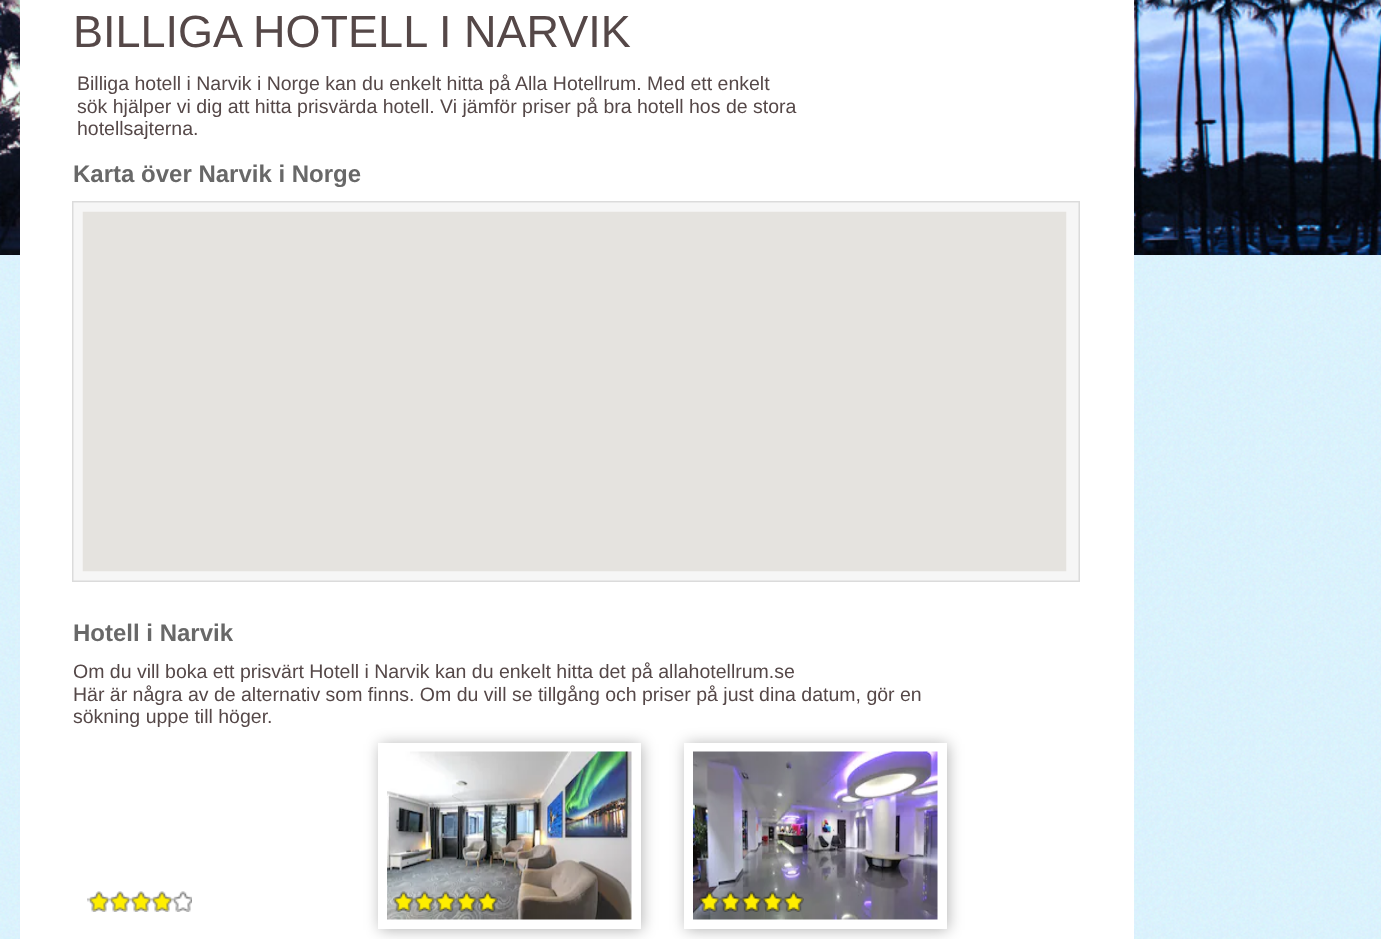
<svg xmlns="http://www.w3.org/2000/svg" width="1381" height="939">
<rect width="100%" height="100%" fill="#fff"/>
<image x="0" y="255" width="1381" height="684" href="media/1.png"/>
<image x="0" y="0" width="1381" height="255" href="media/2.png"/>
<rect x="20" width="1114" height="939" fill="#fff"/>
<text x="73" y="47" style="font-family:Liberation Sans;font-size:45px;fill:#554848">BILLIGA HOTELL I NARVIK</text>
<text x="77" y="90" style="font-family:Liberation Sans;font-size:19.5px;fill:#554848">Billiga hotell i Narvik i Norge kan du enkelt hitta på Alla Hotellrum. Med ett enkelt</text>
<text x="77" y="113" style="font-family:Liberation Sans;font-size:19.5px;fill:#554848">sök hjälper vi dig att hitta prisvärda hotell. Vi jämför priser på bra hotell hos de stora</text>
<text x="77" y="135" style="font-family:Liberation Sans;font-size:19.5px;fill:#554848">hotellsajterna.</text>
<text x="73" y="182" style="font-family:Liberation Sans;font-size:24px;font-weight:bold;fill:#686868">Karta över Narvik i Norge</text>
<image x="72" y="201" width="1008" height="381" href="media/3.png"/>
<text x="73" y="641" style="font-family:Liberation Sans;font-size:24px;font-weight:bold;fill:#686868">Hotell i Narvik</text>
<text x="73" y="678" style="font-family:Liberation Sans;font-size:19.5px;fill:#554848">Om du vill boka ett prisvärt Hotell i Narvik kan du enkelt hitta det på allahotellrum.se</text>
<text x="73" y="701" style="font-family:Liberation Sans;font-size:19.5px;fill:#554848">Här är några av de alternativ som finns. Om du vill se tillgång och priser på just dina datum, gör en</text>
<text x="73" y="723" style="font-family:Liberation Sans;font-size:19.5px;fill:#554848">sökning uppe till höger.</text>
<image x="87" y="891" width="105" height="21" href="media/4.png"/>
<rect x="380" y="744" width="262" height="186" fill="#0000004d" filter="blur(7.5px)"/>
<rect x="378" y="743" width="263" height="186" fill="#fff"/>
<image x="387" y="751" width="245" height="169" href="media/5.png"/>
<image x="393" y="891" width="105" height="21" href="media/6.png"/>
<rect x="686" y="744" width="262" height="186" fill="#0000004d" filter="blur(7.5px)"/>
<rect x="684" y="743" width="263" height="186" fill="#fff"/>
<image x="693" y="751" width="245" height="169" href="media/7.png"/>
<image x="699" y="891" width="105" height="21" href="media/8.png"/>
</svg>
